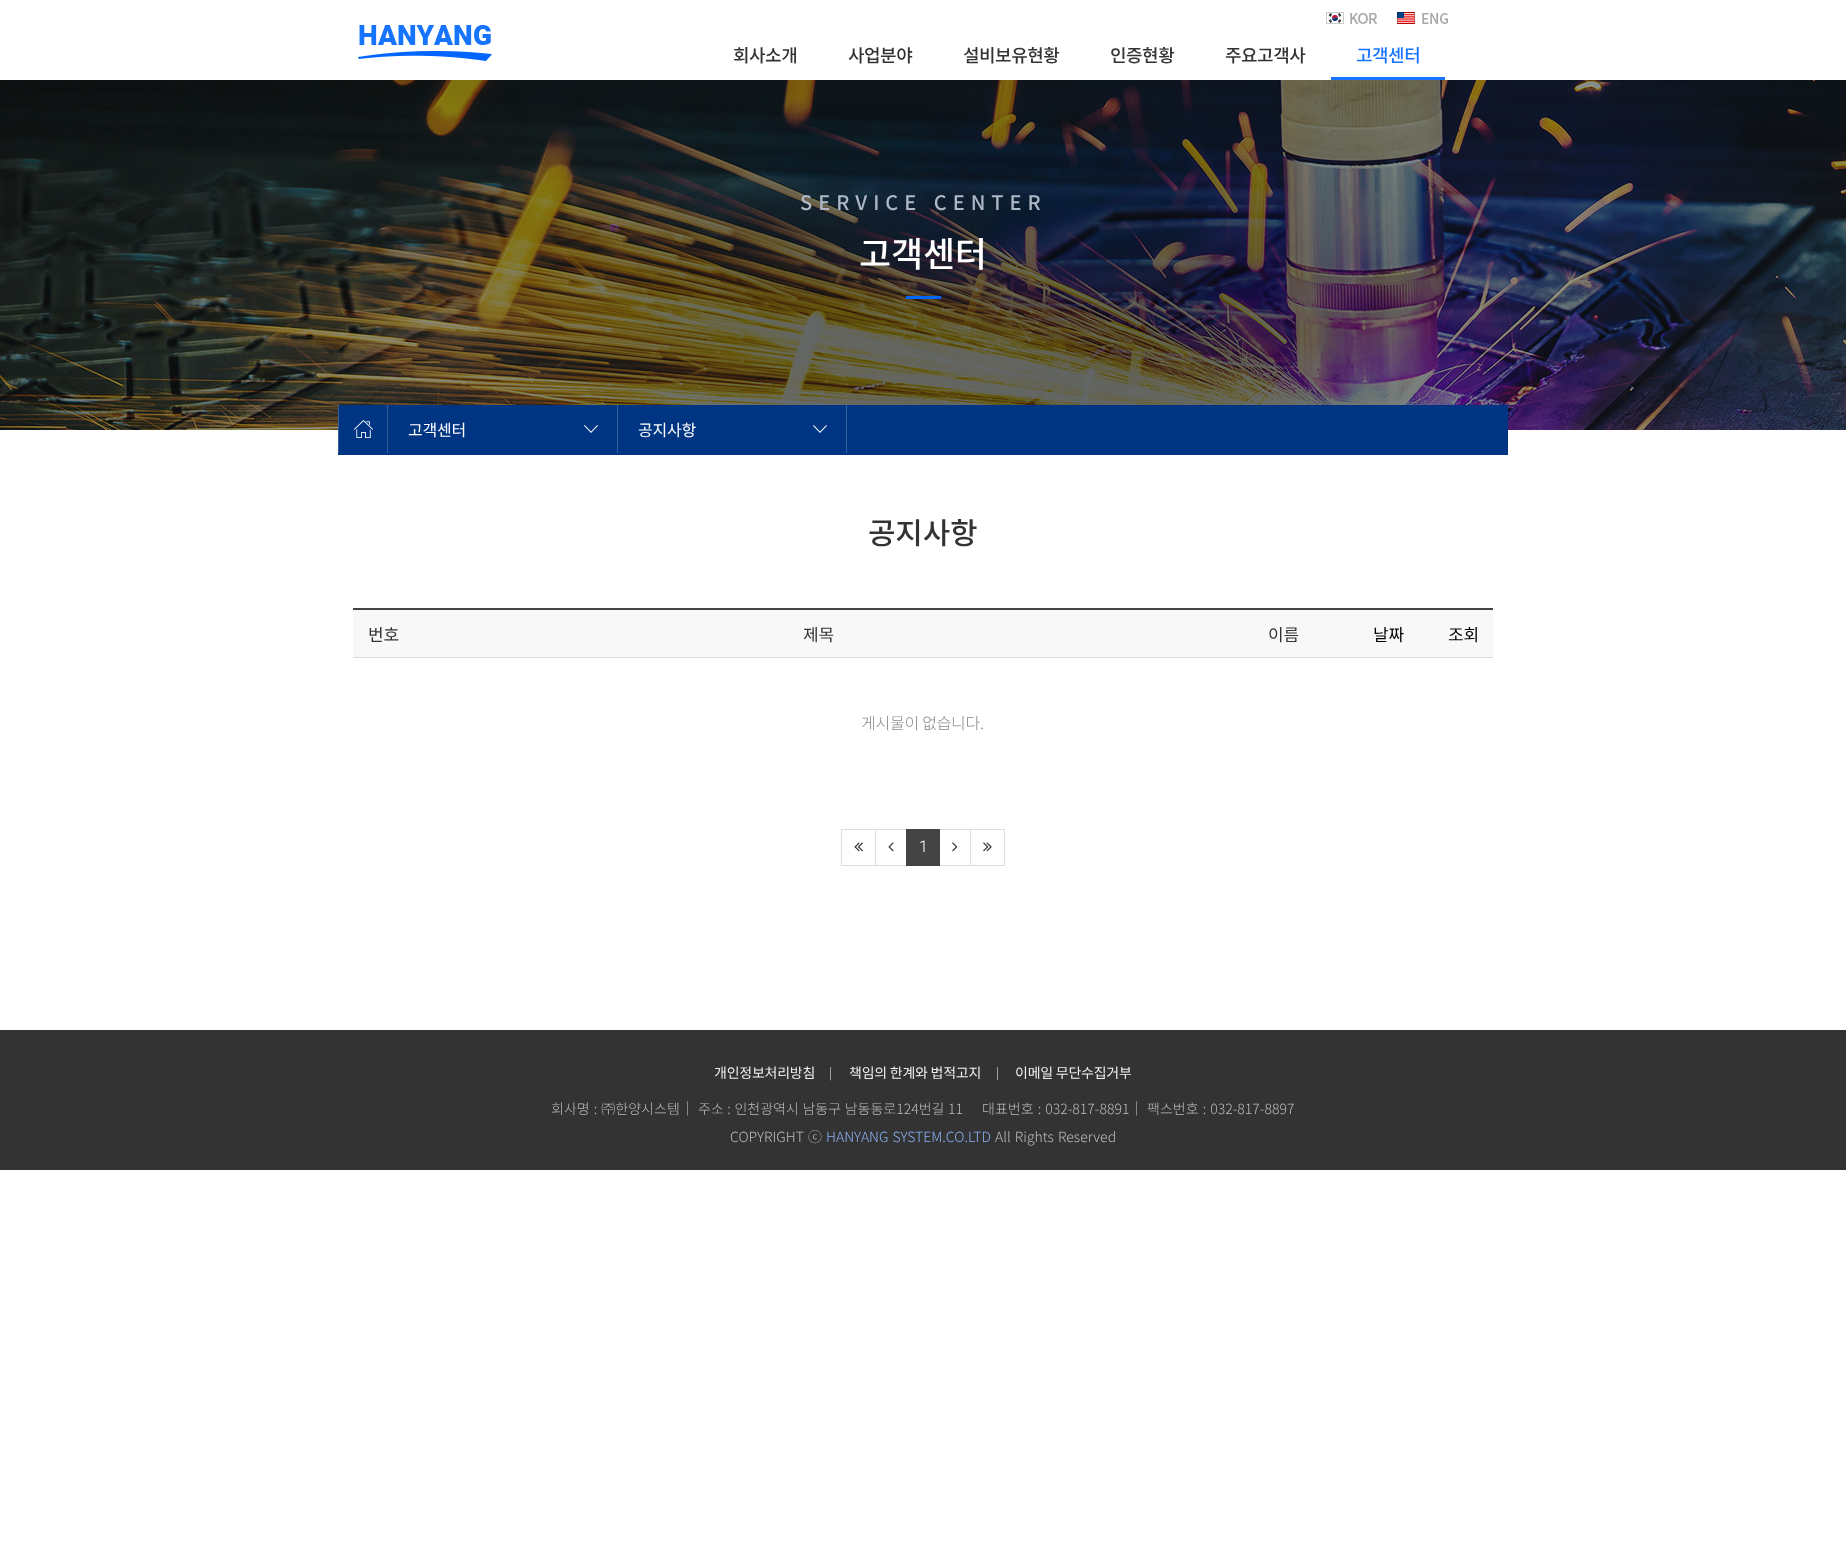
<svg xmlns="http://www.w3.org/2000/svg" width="1846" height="1543">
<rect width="100%" height="100%" fill="#fff"/>
<image x="358" y="25" width="134" height="36" href="media/1.png"/>
<image x="1326" y="12" width="51" height="12" href="media/2.png"/>
<image x="1397" y="12" width="51" height="12" href="media/3.png"/>
<text x="733" y="62" style="font-family:Noto Sans KR;font-size:18px;font-weight:500;letter-spacing:-0.5px;fill:#333">회사소개</text>
<text x="848" y="62" style="font-family:Noto Sans KR;font-size:18px;font-weight:500;letter-spacing:-0.5px;fill:#333">사업분야</text>
<text x="963" y="62" style="font-family:Noto Sans KR;font-size:18px;font-weight:500;letter-spacing:-0.5px;fill:#333">설비보유현황</text>
<text x="1110" y="62" style="font-family:Noto Sans KR;font-size:18px;font-weight:500;letter-spacing:-0.5px;fill:#333">인증현황</text>
<text x="1225" y="62" style="font-family:Noto Sans KR;font-size:18px;font-weight:500;letter-spacing:-0.5px;fill:#333">주요고객사</text>
<text x="1356" y="62" style="font-family:Noto Sans KR;font-size:18px;font-weight:500;letter-spacing:-0.5px;fill:#1774ff">고객센터</text>
<rect x="1331" y="77" width="114" height="3" fill="#1774ff"/>
<image x="0" y="80" width="1846" height="350" href="media/4.png"/>
<text x="800" y="210" word-spacing="1" style="font-family:Noto Sans KR;font-size:20px;font-weight:500;letter-spacing:6px;fill:#aeb7c5">SERVICE CENTER</text>
<text x="859" y="267" style="font-family:Noto Sans KR;font-size:35px;font-weight:500;letter-spacing:-0.25px;fill:#fff">고객센터</text>
<rect x="906" y="296" width="35" height="3" fill="#0065ff"/>
<rect x="338" y="405" width="1170" height="50" fill="#003584"/>
<rect x="387" y="405" width="1" height="48" fill="#335d9d"/>
<rect x="338" y="405" width="1" height="48" fill="#335d9d"/>
<image x="354" y="420" width="19" height="18" href="media/5.png"/>
<rect x="617" y="405" width="1" height="48" fill="#335d9d"/>
<image x="584" y="425" width="14" height="8" href="media/6.png"/>
<text x="408" y="436" style="font-family:Noto Sans KR;font-size:16px;letter-spacing:-0.25px;fill:#fff">고객센터</text>
<rect x="846" y="405" width="1" height="48" fill="#335d9d"/>
<image x="813" y="425" width="14" height="8" href="media/6.png"/>
<text x="638" y="436" style="font-family:Noto Sans KR;font-size:16px;letter-spacing:-0.25px;fill:#fff">공지사항</text>
<text x="868" y="544" style="font-family:Noto Sans KR;font-size:30px;font-weight:500;letter-spacing:-0.25px;fill:#333">공지사항</text>
<rect x="353" y="610" width="1140" height="47" fill="#f8f8f8"/>
<rect x="353" y="608" width="1140" height="2" fill="#444"/>
<rect x="353" y="657" width="1140" height="1" fill="#ddd"/>
<text x="368" y="641" style="font-family:Noto Sans KR;font-size:17px;letter-spacing:-0.25px;fill:#333">번호</text>
<text x="803" y="641" style="font-family:Noto Sans KR;font-size:17px;letter-spacing:-0.25px;fill:#333">제목</text>
<text x="1268" y="641" style="font-family:Noto Sans KR;font-size:17px;letter-spacing:-0.25px;fill:#333">이름</text>
<text x="1373" y="641" style="font-family:Noto Sans KR;font-size:17px;letter-spacing:-0.25px;fill:#000">날짜</text>
<text x="1448" y="641" style="font-family:Noto Sans KR;font-size:17px;letter-spacing:-0.25px;fill:#000">조회</text>
<text x="861" y="729" style="font-family:Noto Sans KR;font-size:16px;font-weight:300;letter-spacing:-0.25px;fill:#888">게시물이 없습니다.</text>
<rect x="841.5" y="829.5" width="34" height="36" fill="none" stroke="#ddd"/>
<image x="854" y="842" width="9" height="10" href="media/7.png"/>
<rect x="875.5" y="829.5" width="31" height="36" fill="none" stroke="#ddd"/>
<image x="888" y="842" width="6" height="10" href="media/8.png"/>
<rect x="939.5" y="829.5" width="31" height="36" fill="none" stroke="#ddd"/>
<rect x="906" y="829" width="34" height="37" fill="#444"/>
<text x="919" y="852" style="font-family:Roboto;font-size:16px;font-weight:300;letter-spacing:-0.25px;fill:#fff">1</text>
<image x="952" y="842" width="6" height="10" href="media/9.png"/>
<rect x="970.5" y="829.5" width="34" height="36" fill="none" stroke="#ddd"/>
<image x="983" y="842" width="9" height="10" href="media/10.png"/>
<rect y="1030" width="1846" height="140" fill="#333"/>
<text x="714" y="1078" style="font-family:Noto Sans KR;font-size:14px;letter-spacing:-0.25px;fill:#eee">개인정보처리방침</text>
<text x="829" y="1077" style="font-family:Noto Sans KR;font-size:12px;font-weight:300;letter-spacing:-0.25px;fill:#eee">|</text>
<text x="849" y="1078" style="font-family:Noto Sans KR;font-size:14px;letter-spacing:-0.25px;fill:#eee">책임의 한계와 법적고지</text>
<text x="996" y="1077" style="font-family:Noto Sans KR;font-size:12px;font-weight:300;letter-spacing:-0.25px;fill:#eee">|</text>
<text x="1015" y="1078" style="font-family:Noto Sans KR;font-size:14px;letter-spacing:-0.25px;fill:#eee">이메일 무단수집거부</text>
<text x="551" y="1114" word-spacing="1" style="font-family:Noto Sans KR;font-size:14px;font-weight:300;fill:#b9bcc0">회사명 : ㈜한양시스템</text>
<text x="686" y="1112" style="font-family:Noto Sans KR;font-size:13px;font-weight:300;fill:#b9bcc0">|</text>
<text x="698" y="1114" word-spacing="0.5" style="font-family:Noto Sans KR;font-size:14px;font-weight:300;fill:#b9bcc0">주소 : 인천광역시 남동구 남동동로124번길 11</text>
<text x="982" y="1114" word-spacing="1" style="font-family:Noto Sans KR;font-size:14px;font-weight:300;fill:#b9bcc0">대표번호 : 032-817-8891</text>
<text x="1135" y="1112" style="font-family:Noto Sans KR;font-size:13px;font-weight:300;fill:#b9bcc0">|</text>
<text x="1147" y="1114" word-spacing="1" style="font-family:Noto Sans KR;font-size:14px;font-weight:300;fill:#b9bcc0">팩스번호 : 032-817-8897</text>
<text x="730" y="1142" word-spacing="1" style="font-family:Noto Sans KR;font-size:14px;font-weight:300;fill:#b9bcc0">COPYRIGHT ⓒ</text>
<text x="826" y="1142" word-spacing="1" style="font-family:Noto Sans KR;font-size:14px;font-weight:300;fill:#8cb1f7">HANYANG SYSTEM.CO.LTD</text>
<text x="995" y="1142" word-spacing="1" style="font-family:Noto Sans KR;font-size:14px;font-weight:300;fill:#b9bcc0">All Rights Reserved</text>
</svg>
